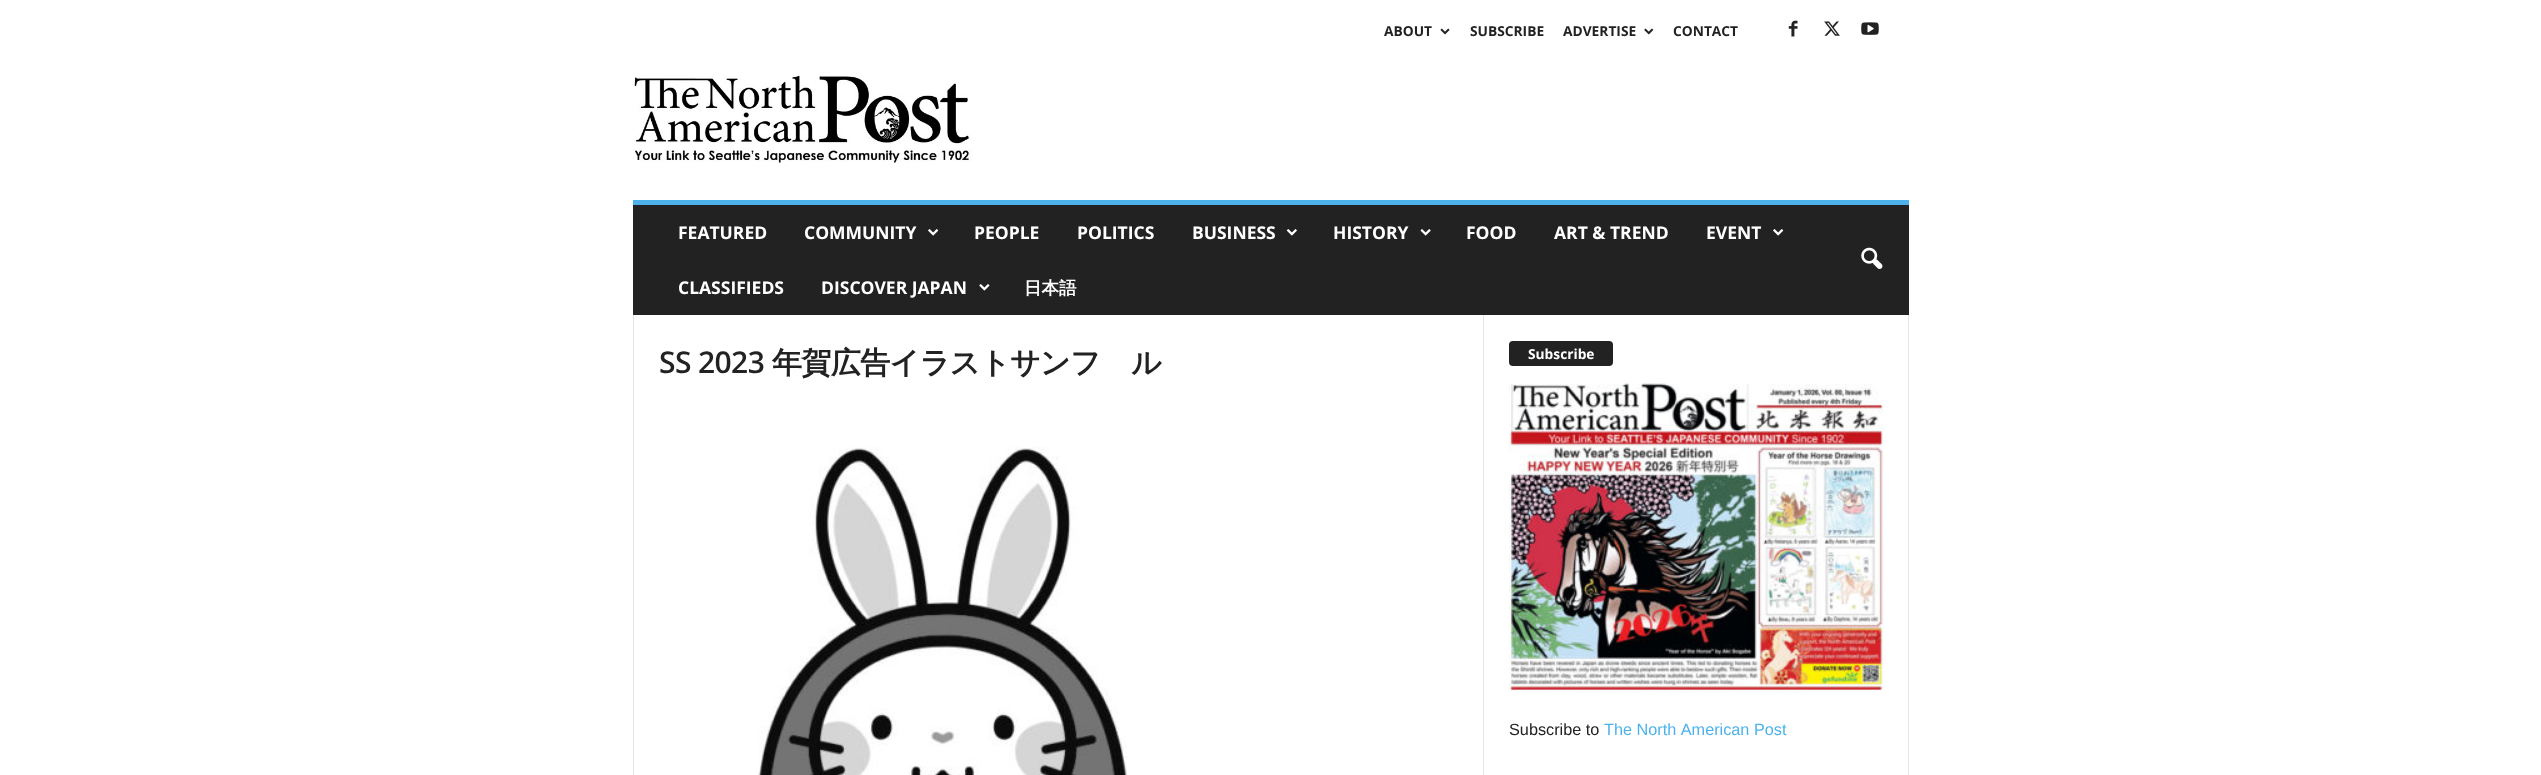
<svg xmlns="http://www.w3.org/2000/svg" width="2541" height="775">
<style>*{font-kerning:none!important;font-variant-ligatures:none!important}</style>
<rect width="100%" height="100%" fill="#fff"/>
<text x="1384" y="36" style="font-family:Open Sans;font-size:13.75px;font-weight:bold;fill:#222">ABOUT</text>
<image x="1440" y="28" width="10" height="7" href="media/1.png"/>
<text x="1470" y="36" style="font-family:Open Sans;font-size:13.75px;font-weight:bold;fill:#222">SUBSCRIBE</text>
<text x="1563" y="36" style="font-family:Open Sans;font-size:13.75px;font-weight:bold;fill:#222">ADVERTISE</text>
<image x="1644" y="28" width="10" height="7" href="media/2.png"/>
<text x="1673" y="36" style="font-family:Open Sans;font-size:13.75px;font-weight:bold;fill:#222">CONTACT</text>
<image x="1788" y="20" width="10" height="17" href="media/3.png"/>
<image x="1824" y="21" width="16" height="15" href="media/4.png"/>
<image x="1861" y="22" width="18" height="13" href="media/5.png"/>
<image x="633" y="75" width="340" height="88" href="media/6.png"/>
<rect x="633" y="205" width="1276" height="110" fill="#222"/>
<rect x="633" y="200" width="1276" height="5" fill="#4db2ec"/>
<text x="678" y="239" style="font-family:Open Sans;font-size:17.5px;font-weight:bold;fill:#fff">FEATURED</text>
<text x="804" y="239" style="font-family:Open Sans;font-size:17.5px;font-weight:bold;fill:#fff">COMMUNITY</text>
<image x="928" y="229" width="11" height="7" href="media/7.png"/>
<text x="974" y="239" style="font-family:Open Sans;font-size:17.5px;font-weight:bold;fill:#fff">PEOPLE</text>
<text x="1077" y="239" style="font-family:Open Sans;font-size:17.5px;font-weight:bold;fill:#fff">POLITICS</text>
<text x="1192" y="239" style="font-family:Open Sans;font-size:17.5px;font-weight:bold;fill:#fff">BUSINESS</text>
<image x="1286" y="229" width="11" height="7" href="media/8.png"/>
<text x="1333" y="239" style="font-family:Open Sans;font-size:17.5px;font-weight:bold;fill:#fff">HISTORY</text>
<image x="1420" y="229" width="11" height="7" href="media/9.png"/>
<text x="1466" y="239" style="font-family:Open Sans;font-size:17.5px;font-weight:bold;fill:#fff">FOOD</text>
<text x="1554" y="239" style="font-family:Open Sans;font-size:17.5px;font-weight:bold;fill:#fff">ART &amp; TREND</text>
<text x="1706" y="239" style="font-family:Open Sans;font-size:17.5px;font-weight:bold;fill:#fff">EVENT</text>
<image x="1773" y="229" width="11" height="7" href="media/7.png"/>
<text x="678" y="294" style="font-family:Open Sans;font-size:17.5px;font-weight:bold;fill:#fff">CLASSIFIEDS</text>
<text x="821" y="294" style="font-family:Open Sans;font-size:17.5px;font-weight:bold;fill:#fff">DISCOVER JAPAN</text>
<image x="979" y="284" width="11" height="7" href="media/10.png"/>
<text x="1024" y="294" style="font-family:WenQuanYi Zen Hei;font-size:17.5px;font-weight:bold;fill:#fff">日本語</text>
<image x="1861" y="247" width="22" height="22" href="media/11.png"/>
<rect x="633" y="315" width="1" height="460" fill="#e6e6e6"/>
<text x="659" y="373" style="font-family:Open Sans;font-size:30px;font-weight:600;letter-spacing:-0.6px;fill:#222">SS 2023</text>
<text x="772" y="373" style="font-family:WenQuanYi Zen Hei;font-size:30px;font-weight:bold;letter-spacing:-0.6px;fill:#222">年賀広告イラストサンプル</text>
<image x="758" y="446" width="369" height="329" href="media/12.png"/>
<rect x="1483" y="315" width="1" height="460" fill="#e6e6e6"/>
<rect x="1509" y="341" width="104" height="25" rx="4" fill="#222"/>
<text x="1528" y="359" style="font-family:Open Sans;font-size:13.75px;font-weight:bold;fill:#fff">Subscribe</text>
<image x="1508" y="383" width="376" height="307" href="media/13.png"/>
<text x="1509" y="735" style="font-family:Liberation Sans;font-size:16.25px;fill:#222">Subscribe to</text>
<text x="1604" y="735" style="font-family:Liberation Sans;font-size:16.25px;fill:#4db2ec">The North American Post</text>
<rect x="1908" y="315" width="1" height="460" fill="#e6e6e6"/>
</svg>
